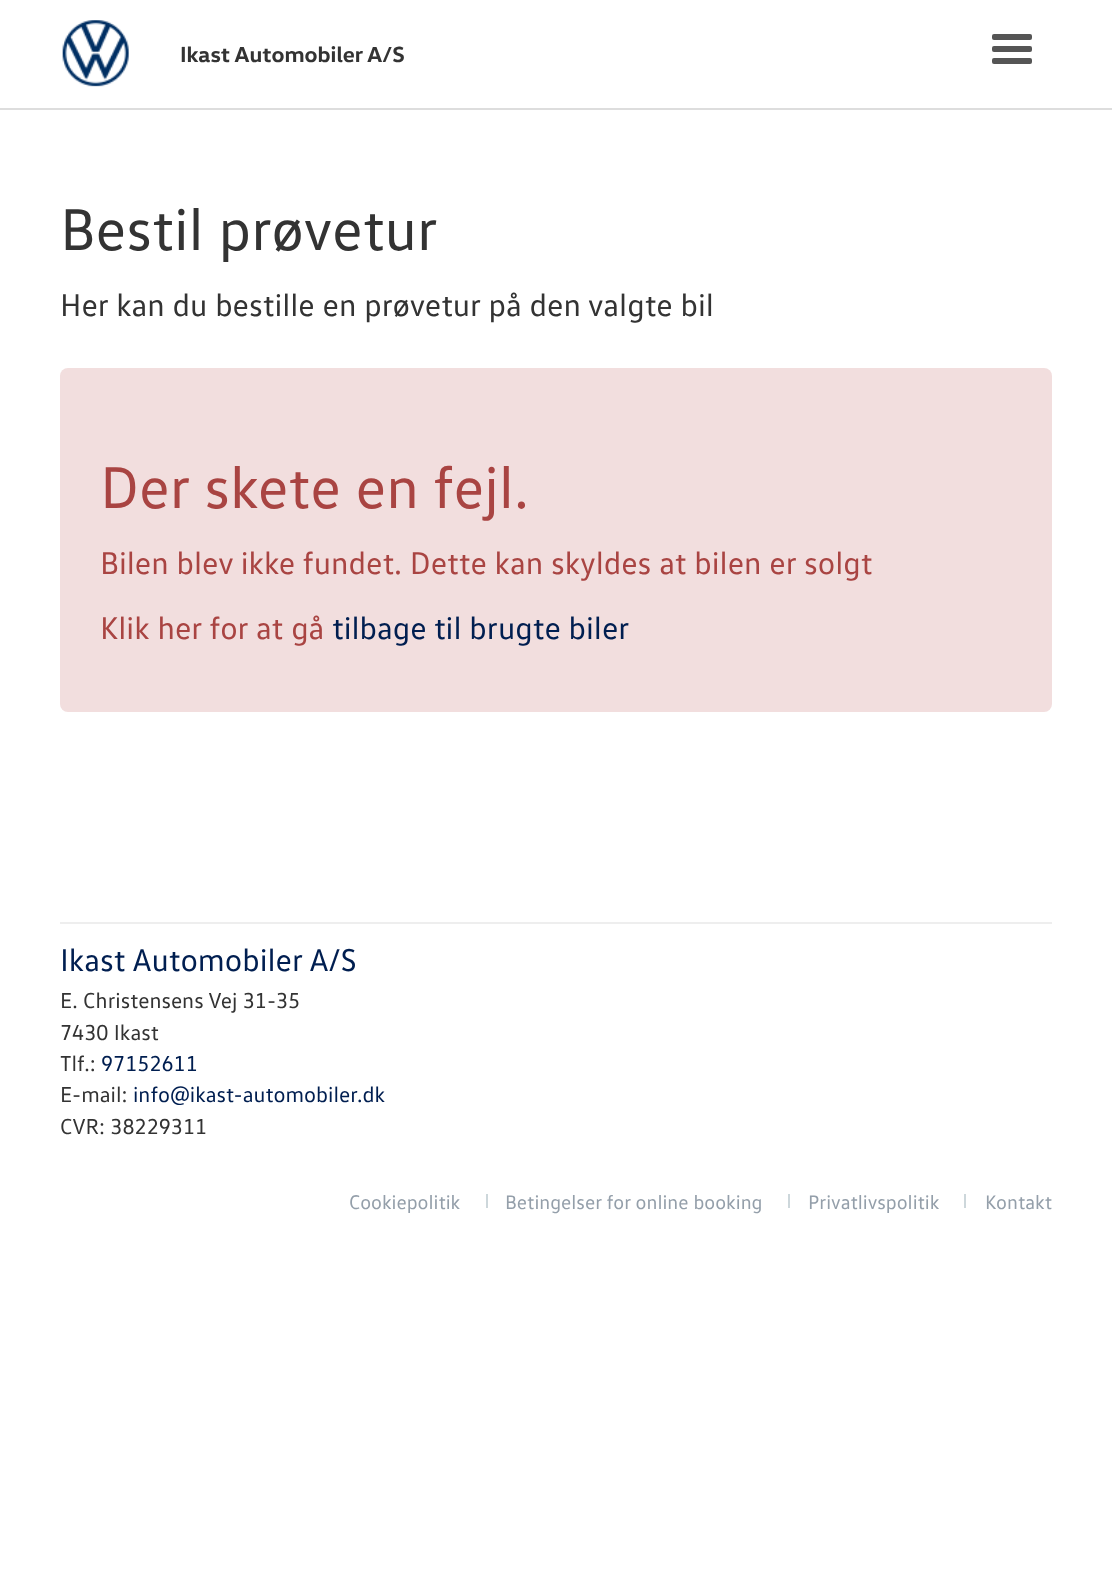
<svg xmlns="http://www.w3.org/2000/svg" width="1112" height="1589">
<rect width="100%" height="100%" fill="#fff"/>
<rect y="108" width="1112" height="2" fill="#ddd"/>
<image x="62" y="20" width="67" height="67" href="media/1.png"/>
<text x="180" y="62" style="font-family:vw;font-size:22.25px;font-weight:bold;fill:#333">Ikast Automobiler A/S</text>
<rect x="992" y="34" width="40" height="6" rx="2" fill="#555"/>
<rect x="992" y="46" width="40" height="6" rx="2" fill="#555"/>
<rect x="992" y="58" width="40" height="6" rx="2" fill="#555"/>
<text x="60" y="250" style="font-family:vw;font-size:60px;fill:#333">Bestil prøvetur</text>
<text x="60" y="316" style="font-family:vw;font-size:32px;fill:#333">Her kan du bestille en prøvetur på den valgte bil</text>
<rect x="60" y="368" width="992" height="344" rx="8" fill="#f2dede"/>
<text x="100" y="508" style="font-family:vw;font-size:60px;fill:#a94442">Der skete en fejl.</text>
<text x="100" y="574" style="font-family:vw;font-size:32px;fill:#a94442">Bilen blev ikke fundet. Dette kan skyldes at bilen er solgt</text>
<text x="100" y="639" style="font-family:vw;font-size:32px;fill:#a94442">Klik her for at gå</text>
<text x="332" y="639" style="font-family:vw;font-size:32px;fill:#001e50">tilbage til brugte biler</text>
<rect x="60" y="922" width="992" height="2" fill="#eee"/>
<text x="60" y="971" style="font-family:vw;font-size:32px;fill:#001e50">Ikast Automobiler A/S</text>
<text x="60" y="1008" style="font-family:vw;font-size:22px;fill:#333">E. Christensens Vej 31-35</text>
<text x="60" y="1040" style="font-family:vw;font-size:22px;fill:#333">7430 Ikast</text>
<text x="60" y="1071" style="font-family:vw;font-size:22px;fill:#333">Tlf.:</text>
<text x="101" y="1071" style="font-family:vw;font-size:22px;fill:#001e50">97152611</text>
<text x="60" y="1102" style="font-family:vw;font-size:22px;fill:#333">E-mail:</text>
<text x="133" y="1102" style="font-family:vw;font-size:22px;fill:#001e50">info@ikast-automobiler.dk</text>
<text x="60" y="1134" style="font-family:vw;font-size:22px;fill:#333">CVR: 38229311</text>
<text x="349" y="1209" style="font-family:vw;font-size:20px;fill:#949faa">Cookiepolitik</text>
<rect x="486" y="1194" width="2" height="14" fill="#cdd7db"/>
<text x="505" y="1209" style="font-family:vw;font-size:20px;fill:#949faa">Betingelser for online booking</text>
<rect x="788" y="1194" width="2" height="14" fill="#cdd7db"/>
<text x="808" y="1209" style="font-family:vw;font-size:20px;fill:#949faa">Privatlivspolitik</text>
<rect x="964" y="1194" width="2" height="14" fill="#cdd7db"/>
<text x="985" y="1209" style="font-family:vw;font-size:20px;fill:#949faa">Kontakt</text>
</svg>
